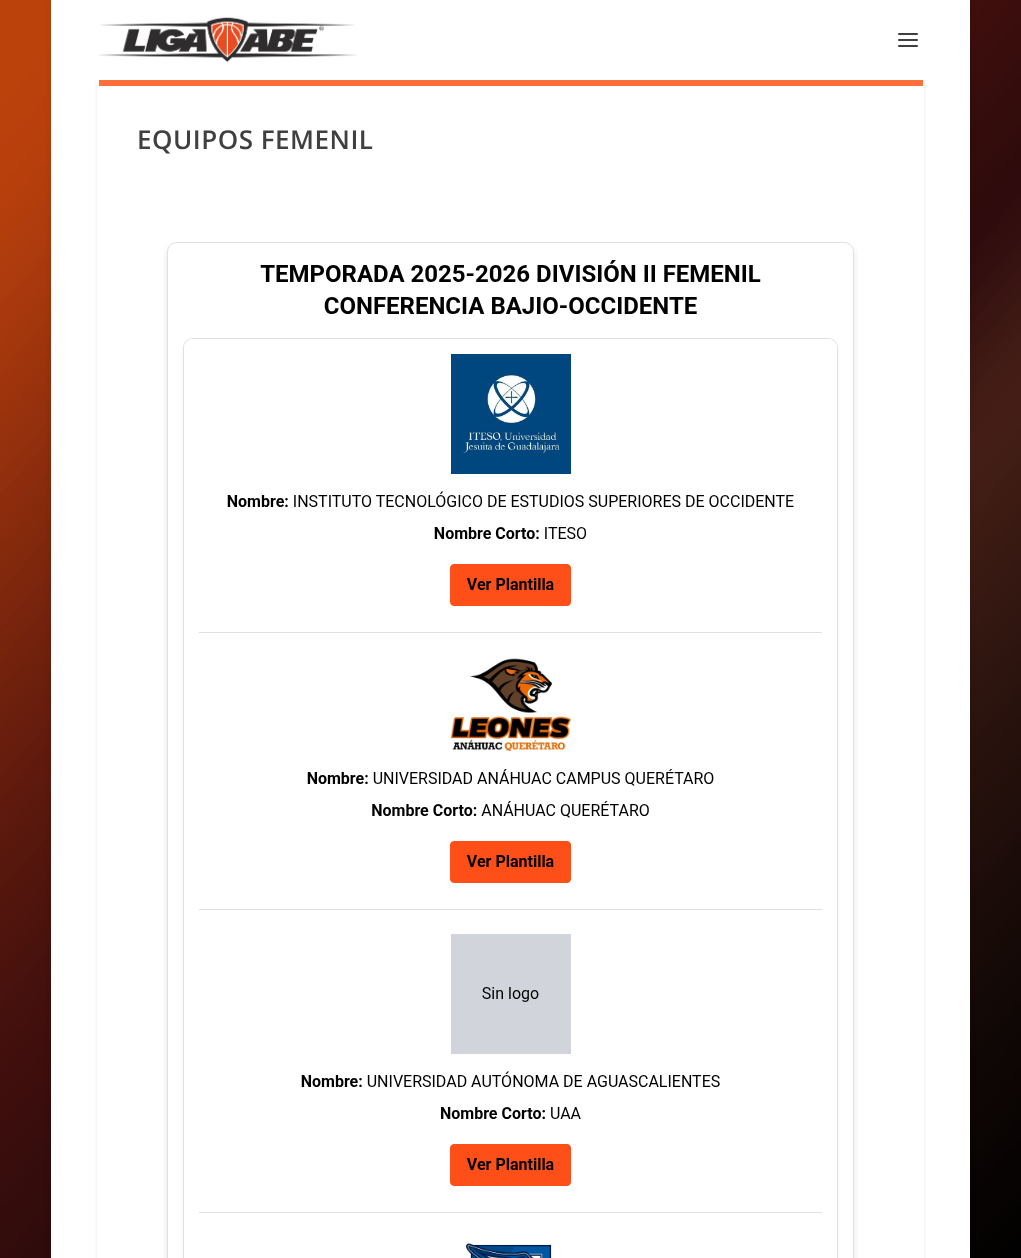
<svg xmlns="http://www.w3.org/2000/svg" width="1021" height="1258">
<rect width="100%" height="100%" fill="#fff"/>
<image x="0" y="0" width="1021" height="1258" href="media/1.png"/>
<rect x="51" y="1" width="919" height="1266" fill="#0000001a" filter="blur(3px)"/>
<rect x="51" y="80" width="919" height="1178" fill="#fff"/>
<rect x="97" y="81" width="827" height="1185" rx="3" fill="#0000001a" filter="blur(1.5px)"/>
<rect x="51" width="919" height="80" fill="#fff"/>
<image x="98" y="17" width="259" height="46" href="media/2.png"/>
<rect x="898" y="33" width="20" height="2" rx="1" fill="#404040"/>
<rect x="898" y="39" width="20" height="2" rx="1" fill="#404040"/>
<rect x="898" y="45" width="20" height="2" rx="1" fill="#404040"/>
<rect x="97" y="80" width="827" height="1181" rx="3" fill="#fff"/>
<rect x="99" y="80" width="824" height="6" fill="#ff6f3a"/>
<text x="137" y="149" style="font-family:Open Sans;font-size:26px;font-weight:600;letter-spacing:0.5px;fill:#404040">EQUIPOS FEMENIL</text>
<image x="163" y="242" width="695" height="1016" href="media/3.png"/>
</svg>
